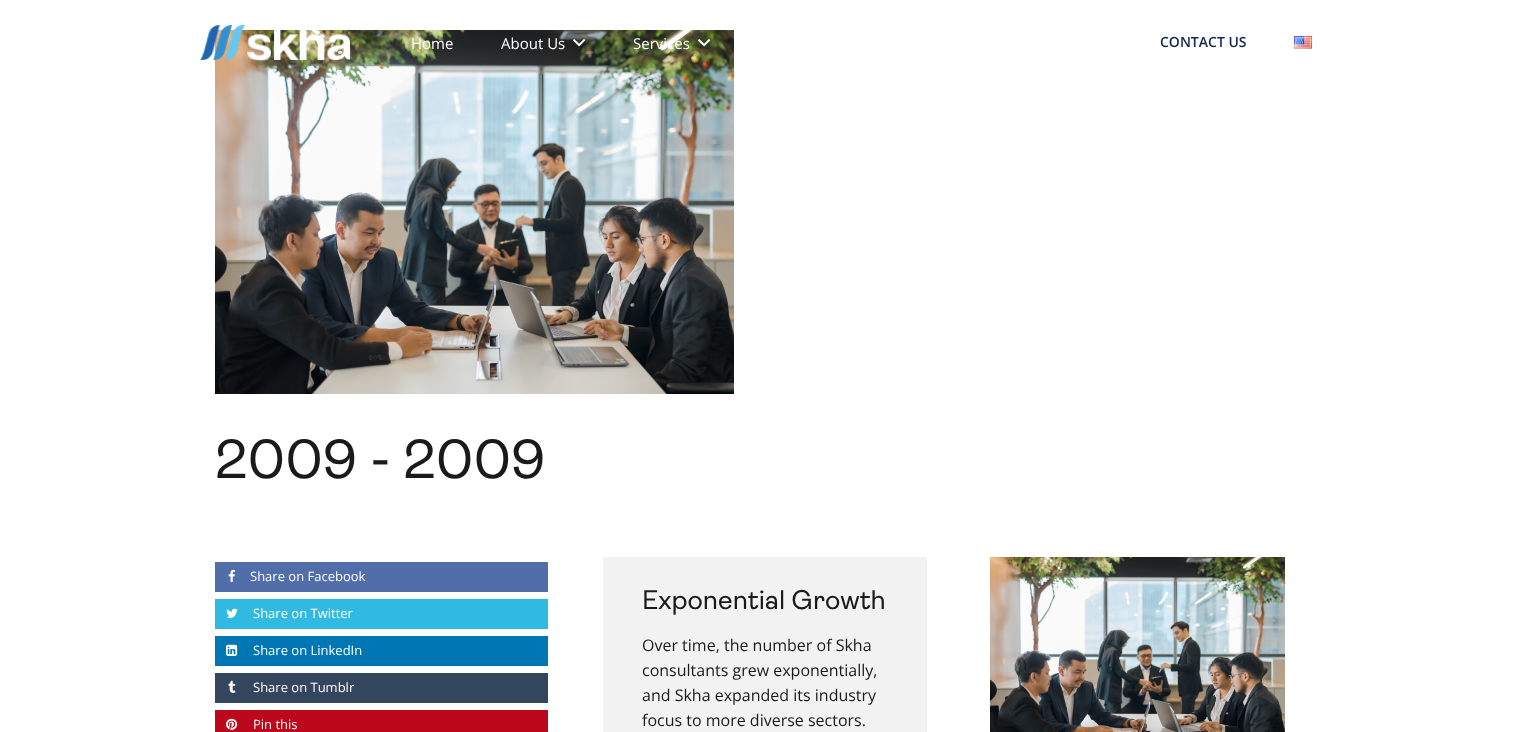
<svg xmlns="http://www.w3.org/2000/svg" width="1539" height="732">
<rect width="100%" height="100%" fill="#fff"/>
<image x="215" y="30" width="519" height="364" href="media/5.png"/>
<image x="200" y="25" width="150" height="35" href="media/1.png"/>
<text x="411" y="49" style="font-family:Open Sans;font-size:15px;fill:#fff">Home</text>
<text x="501" y="49" style="font-family:Open Sans;font-size:15px;fill:#fff">About Us</text>
<image x="573" y="39" width="13" height="8" href="media/2.png"/>
<text x="633" y="49" style="font-family:Open Sans;font-size:15px;fill:#fff">Services</text>
<image x="698" y="39" width="13" height="8" href="media/3.png"/>
<text x="1160" y="47" style="font-family:Open Sans;font-size:14px;font-weight:600;fill:#13274c">CONTACT US</text>
<image x="1294" y="36" width="19" height="13" href="media/4.png"/>
<text x="215" y="478" style="font-family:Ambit;font-size:55px;fill:#1a1a1a">2009 - 2009</text>
<rect x="215" y="562" width="333" height="30" fill="#516eab"/>
<image x="228" y="569" width="7" height="13" href="media/6.png"/>
<text x="250" y="581" style="font-family:Open Sans;font-size:13px;fill:#fff">Share on Facebook</text>
<rect x="215" y="599" width="333" height="30" fill="#31bae1"/>
<image x="226" y="608" width="12" height="10" href="media/7.png"/>
<text x="253" y="618" style="font-family:Open Sans;font-size:13px;fill:#fff">Share on Twitter</text>
<rect x="215" y="636" width="333" height="30" fill="#0077b5"/>
<image x="226" y="644" width="12" height="12" href="media/8.png"/>
<text x="253" y="655" style="font-family:Open Sans;font-size:13px;fill:#fff">Share on LinkedIn</text>
<rect x="215" y="673" width="333" height="30" fill="#34465d"/>
<image x="228" y="680" width="8" height="13" href="media/9.png"/>
<text x="253" y="692" style="font-family:Open Sans;font-size:13px;fill:#fff">Share on Tumblr</text>
<rect x="215" y="710" width="333" height="22" fill="#bd081c"/>
<image x="226" y="718" width="12" height="12" href="media/10.png"/>
<text x="253" y="729" style="font-family:Open Sans;font-size:13px;fill:#fff">Pin this</text>
<rect x="603" y="557" width="324" height="175" fill="#f2f2f2"/>
<text x="642" y="609" style="font-family:Ambit;font-size:27px;fill:#1a1a1a">Exponential Growth</text>
<text x="642" y="651" style="font-family:Open Sans;font-size:16px;fill:#1a1a1a">Over time, the number of Skha</text>
<text x="642" y="676" style="font-family:Open Sans;font-size:16px;fill:#1a1a1a">consultants grew exponentially,</text>
<text x="642" y="701" style="font-family:Open Sans;font-size:16px;fill:#1a1a1a">and Skha expanded its industry</text>
<text x="642" y="726" style="font-family:Open Sans;font-size:16px;fill:#1a1a1a">focus to more diverse sectors.</text>
<image x="990" y="557" width="295" height="175" href="media/11.png"/>
</svg>
